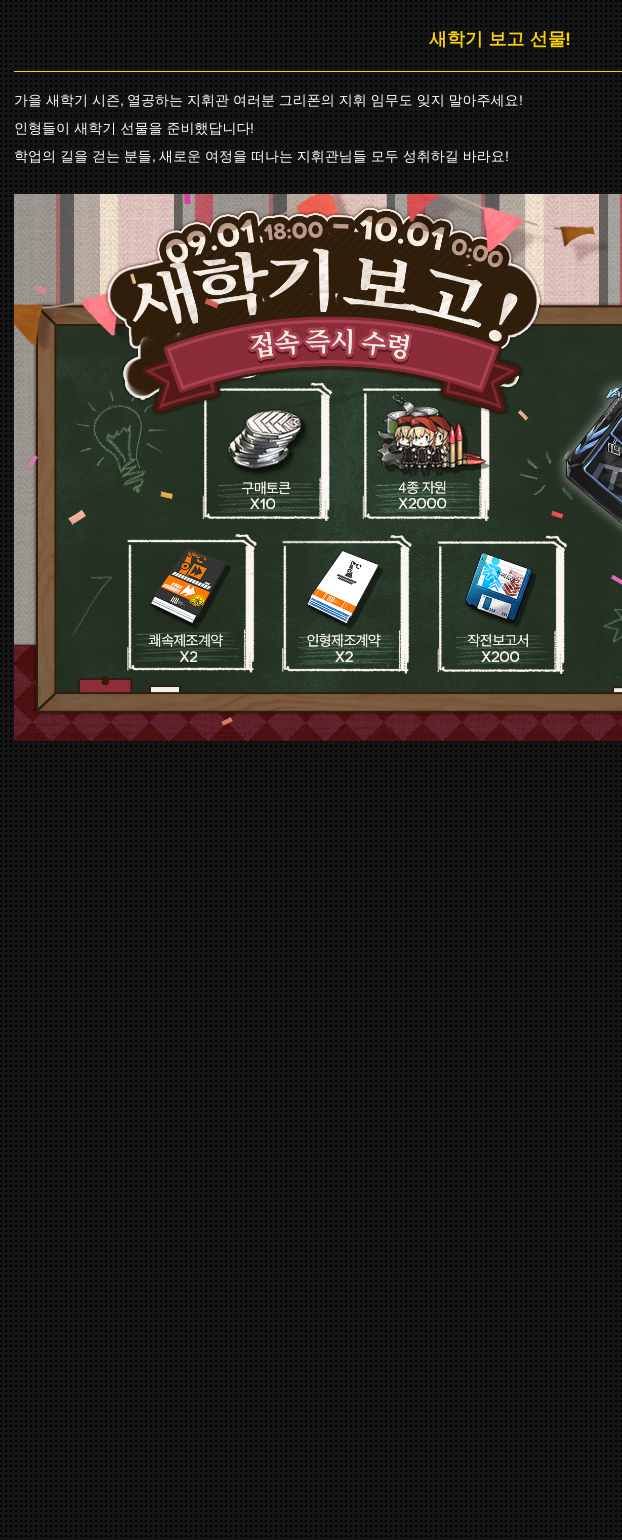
#include <cairo.h>
#include <math.h>
#include <stddef.h>

static cairo_t *ctx;

static void use_color(int r, int g, int b) {
    cairo_set_source_rgb(ctx, r / 255.0, g / 255.0, b / 255.0);
}

static void spaced_text(double x, double y, const char *s, double letter, double word) {
    cairo_move_to(ctx, x, y);
    while (*s) {
        char ch[5] = {0};
        int n = 0;
        do ch[n++] = *s++; while ((*s & 0xC0) == 0x80);
        cairo_show_text(ctx, ch);
        cairo_rel_move_to(ctx, letter + word * (*ch == ' '), 0);
    }
}

static void picture(const char *path, double x, double y, double w, double h) {
    cairo_surface_t *image = cairo_image_surface_create_from_png(path);
    cairo_save(ctx);
    cairo_set_source_surface(ctx, image, x, y);
    cairo_rectangle(ctx, x, y, w, h);
    cairo_fill(ctx);
    cairo_restore(ctx);
    cairo_surface_destroy(image);
}

int main(void) {
    cairo_surface_t *surface = cairo_image_surface_create(CAIRO_FORMAT_RGB24, 622, 1540);
    ctx = cairo_create(surface);
    cairo_font_options_t *options = cairo_font_options_create();
    cairo_font_options_set_hint_metrics(options, CAIRO_HINT_METRICS_OFF);
    cairo_font_options_set_hint_style(options, CAIRO_HINT_STYLE_NONE);
    cairo_set_font_options(ctx, options);
    cairo_set_miter_limit(ctx, 4);
    use_color(21, 21, 21);
    cairo_paint(ctx);
    picture("img1.png", 0, 0, 622, 1537);
    use_color(255, 210, 0);
    cairo_rectangle(ctx, 14, 71, 608, 1);
    cairo_fill(ctx);
    cairo_select_font_face(ctx, "WenQuanYi Zen Hei", CAIRO_FONT_SLANT_NORMAL, CAIRO_FONT_WEIGHT_BOLD);
    cairo_set_font_size(ctx, 18);
    cairo_move_to(ctx, 429, 45);
    cairo_show_text(ctx, "새학기 보고 선물");
    cairo_select_font_face(ctx, "Liberation Sans", CAIRO_FONT_SLANT_NORMAL, CAIRO_FONT_WEIGHT_BOLD);
    cairo_move_to(ctx, 565, 45);
    cairo_show_text(ctx, "!");
    cairo_select_font_face(ctx, "WenQuanYi Zen Hei Medium", CAIRO_FONT_SLANT_NORMAL, CAIRO_FONT_WEIGHT_NORMAL);
    cairo_set_font_size(ctx, 14);
    use_color(255, 255, 255);
    spaced_text(14, 105, "가을 새학기 시즌", 0, -0.25);
    cairo_select_font_face(ctx, "Liberation Sans", CAIRO_FONT_SLANT_NORMAL, CAIRO_FONT_WEIGHT_NORMAL);
    cairo_move_to(ctx, 120, 105);
    cairo_show_text(ctx, ",");
    cairo_select_font_face(ctx, "WenQuanYi Zen Hei Medium", CAIRO_FONT_SLANT_NORMAL, CAIRO_FONT_WEIGHT_NORMAL);
    spaced_text(127, 105, "열공하는 지휘관 여러분 그리폰의 지휘 임무도 잊지 말아주세요", 0, -0.25);
    cairo_select_font_face(ctx, "Liberation Sans", CAIRO_FONT_SLANT_NORMAL, CAIRO_FONT_WEIGHT_NORMAL);
    cairo_move_to(ctx, 519, 105);
    cairo_show_text(ctx, "!");
    cairo_select_font_face(ctx, "WenQuanYi Zen Hei Medium", CAIRO_FONT_SLANT_NORMAL, CAIRO_FONT_WEIGHT_NORMAL);
    cairo_move_to(ctx, 14, 133);
    cairo_show_text(ctx, "인형들이 새학기 선물을 준비했답니다");
    cairo_select_font_face(ctx, "Liberation Sans", CAIRO_FONT_SLANT_NORMAL, CAIRO_FONT_WEIGHT_NORMAL);
    cairo_move_to(ctx, 250, 133);
    cairo_show_text(ctx, "!");
    cairo_select_font_face(ctx, "WenQuanYi Zen Hei Medium", CAIRO_FONT_SLANT_NORMAL, CAIRO_FONT_WEIGHT_NORMAL);
    spaced_text(14, 161, "학업의 길을 걷는 분들", 0, -0.25);
    cairo_select_font_face(ctx, "Liberation Sans", CAIRO_FONT_SLANT_NORMAL, CAIRO_FONT_WEIGHT_NORMAL);
    cairo_move_to(ctx, 152, 161);
    cairo_show_text(ctx, ",");
    cairo_select_font_face(ctx, "WenQuanYi Zen Hei Medium", CAIRO_FONT_SLANT_NORMAL, CAIRO_FONT_WEIGHT_NORMAL);
    spaced_text(159, 161, "새로운 여정을 떠나는 지휘관님들 모두 성취하길 바라요", 0, -0.25);
    cairo_select_font_face(ctx, "Liberation Sans", CAIRO_FONT_SLANT_NORMAL, CAIRO_FONT_WEIGHT_NORMAL);
    cairo_move_to(ctx, 505, 161);
    cairo_show_text(ctx, "!");
    picture("img2.png", 14, 194, 608, 547);
    cairo_surface_write_to_png(surface, "result.png");
    cairo_font_options_destroy(options);
    cairo_destroy(ctx);
    cairo_surface_destroy(surface);
    return 0;
}
